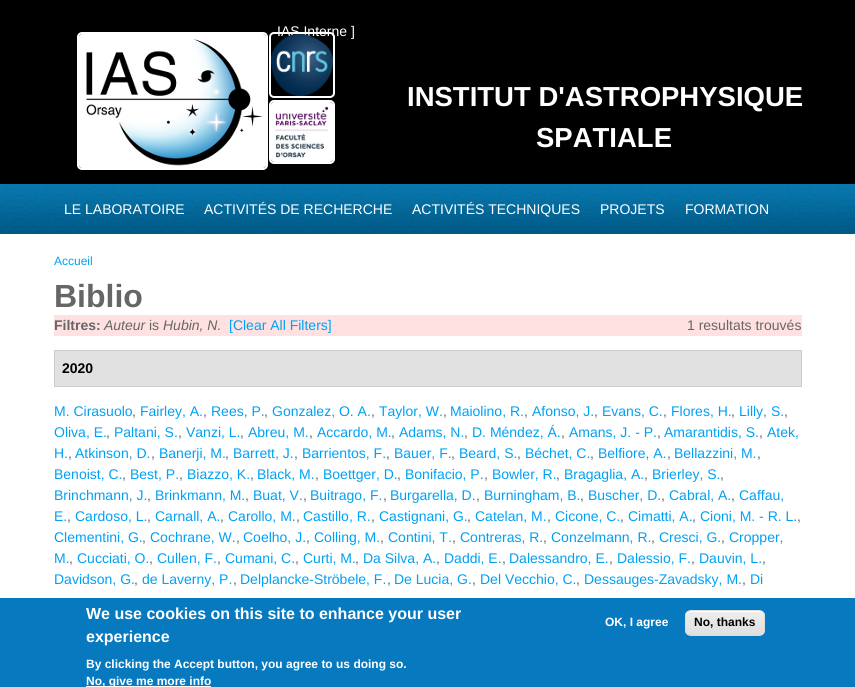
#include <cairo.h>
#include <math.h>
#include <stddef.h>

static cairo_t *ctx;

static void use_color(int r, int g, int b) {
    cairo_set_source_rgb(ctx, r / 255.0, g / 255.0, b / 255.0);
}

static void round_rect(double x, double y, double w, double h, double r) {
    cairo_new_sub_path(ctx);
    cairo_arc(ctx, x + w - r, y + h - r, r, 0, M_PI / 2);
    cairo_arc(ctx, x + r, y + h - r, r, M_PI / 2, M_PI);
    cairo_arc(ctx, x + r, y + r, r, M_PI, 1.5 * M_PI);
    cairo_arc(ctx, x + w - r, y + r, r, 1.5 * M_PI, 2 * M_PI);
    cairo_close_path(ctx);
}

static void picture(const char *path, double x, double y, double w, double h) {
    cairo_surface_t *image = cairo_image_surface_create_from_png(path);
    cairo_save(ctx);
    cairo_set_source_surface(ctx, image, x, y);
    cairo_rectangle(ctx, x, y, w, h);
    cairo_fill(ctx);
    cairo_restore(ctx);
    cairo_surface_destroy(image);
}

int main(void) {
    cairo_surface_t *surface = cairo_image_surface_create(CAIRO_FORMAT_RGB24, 855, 687);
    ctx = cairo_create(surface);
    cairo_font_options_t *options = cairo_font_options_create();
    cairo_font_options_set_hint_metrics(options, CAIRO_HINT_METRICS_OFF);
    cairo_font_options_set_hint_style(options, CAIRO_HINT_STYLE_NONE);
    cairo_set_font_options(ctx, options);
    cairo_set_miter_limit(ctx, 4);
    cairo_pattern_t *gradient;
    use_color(255, 255, 255);
    cairo_paint(ctx);
    use_color(0, 0, 0);
    cairo_rectangle(ctx, 0, 0, 855, 184);
    cairo_fill(ctx);
    cairo_select_font_face(ctx, "Liberation Sans", CAIRO_FONT_SLANT_NORMAL, CAIRO_FONT_WEIGHT_NORMAL);
    cairo_set_font_size(ctx, 14);
    use_color(255, 255, 255);
    cairo_move_to(ctx, 277, 36);
    cairo_show_text(ctx, "IAS Interne ]");
    round_rect(78, 33, 189, 136, 4);
    cairo_stroke(ctx);
    picture("img1.png", 79, 34, 187, 134);
    round_rect(270, 33, 64, 64, 4);
    cairo_stroke(ctx);
    picture("img2.png", 271, 34, 62, 62);
    round_rect(270, 101, 64, 62, 4);
    cairo_stroke(ctx);
    picture("img3.png", 271, 102, 62, 60);
    cairo_select_font_face(ctx, "Liberation Sans", CAIRO_FONT_SLANT_NORMAL, CAIRO_FONT_WEIGHT_BOLD);
    cairo_set_font_size(ctx, 27.5);
    cairo_move_to(ctx, 407, 106);
    cairo_show_text(ctx, "INSTITUT D'ASTROPHYSIQUE");
    cairo_move_to(ctx, 536, 147);
    cairo_show_text(ctx, "SPATIALE");
    picture("img4.png", 0, 184, 855, 50);
    cairo_select_font_face(ctx, "Liberation Sans", CAIRO_FONT_SLANT_NORMAL, CAIRO_FONT_WEIGHT_NORMAL);
    cairo_set_font_size(ctx, 14);
    cairo_move_to(ctx, 64, 214);
    cairo_show_text(ctx, "LE LABORATOIRE");
    cairo_move_to(ctx, 204, 214);
    cairo_show_text(ctx, "ACTIVITÉS DE RECHERCHE");
    cairo_move_to(ctx, 412, 214);
    cairo_show_text(ctx, "ACTIVITÉS TECHNIQUES");
    cairo_move_to(ctx, 600, 214);
    cairo_show_text(ctx, "PROJETS");
    cairo_move_to(ctx, 685, 214);
    cairo_show_text(ctx, "FORMATION");
    cairo_set_font_size(ctx, 12);
    use_color(0, 161, 244);
    cairo_move_to(ctx, 54, 265);
    cairo_show_text(ctx, "Accueil");
    cairo_select_font_face(ctx, "Liberation Sans", CAIRO_FONT_SLANT_NORMAL, CAIRO_FONT_WEIGHT_BOLD);
    cairo_set_font_size(ctx, 32);
    use_color(102, 102, 102);
    cairo_move_to(ctx, 54, 307);
    cairo_show_text(ctx, "Biblio");
    use_color(255, 225, 225);
    cairo_rectangle(ctx, 54, 315, 748, 21);
    cairo_fill(ctx);
    cairo_set_font_size(ctx, 14);
    use_color(102, 102, 102);
    cairo_move_to(ctx, 54, 330);
    cairo_show_text(ctx, "Filtres:");
    cairo_select_font_face(ctx, "Liberation Sans", CAIRO_FONT_SLANT_ITALIC, CAIRO_FONT_WEIGHT_NORMAL);
    cairo_move_to(ctx, 104, 330);
    cairo_show_text(ctx, "Auteur");
    cairo_select_font_face(ctx, "Liberation Sans", CAIRO_FONT_SLANT_NORMAL, CAIRO_FONT_WEIGHT_NORMAL);
    cairo_move_to(ctx, 149, 330);
    cairo_show_text(ctx, "is");
    cairo_select_font_face(ctx, "Liberation Sans", CAIRO_FONT_SLANT_ITALIC, CAIRO_FONT_WEIGHT_NORMAL);
    cairo_move_to(ctx, 163, 330);
    cairo_show_text(ctx, "Hubin, N.");
    cairo_select_font_face(ctx, "Liberation Sans", CAIRO_FONT_SLANT_NORMAL, CAIRO_FONT_WEIGHT_NORMAL);
    use_color(0, 161, 244);
    cairo_move_to(ctx, 229, 330);
    cairo_show_text(ctx, "[Clear All Filters]");
    use_color(102, 102, 102);
    cairo_move_to(ctx, 687, 330);
    cairo_show_text(ctx, "1 resultats trouvés");
    use_color(225, 225, 225);
    cairo_rectangle(ctx, 54.5, 350.5, 747, 36);
    cairo_fill_preserve(ctx);
    use_color(204, 204, 204);
    cairo_set_line_width(ctx, 1);
    cairo_stroke(ctx);
    cairo_select_font_face(ctx, "Liberation Sans", CAIRO_FONT_SLANT_NORMAL, CAIRO_FONT_WEIGHT_BOLD);
    use_color(0, 0, 0);
    cairo_move_to(ctx, 62, 373);
    cairo_show_text(ctx, "2020");
    cairo_select_font_face(ctx, "Liberation Sans", CAIRO_FONT_SLANT_NORMAL, CAIRO_FONT_WEIGHT_NORMAL);
    use_color(0, 161, 244);
    cairo_move_to(ctx, 54, 416);
    cairo_show_text(ctx, "M. Cirasuolo");
    use_color(102, 102, 102);
    cairo_move_to(ctx, 132, 416);
    cairo_show_text(ctx, ",");
    use_color(0, 161, 244);
    cairo_move_to(ctx, 140, 416);
    cairo_show_text(ctx, "Fairley, A.");
    use_color(102, 102, 102);
    cairo_move_to(ctx, 203, 416);
    cairo_show_text(ctx, ",");
    use_color(0, 161, 244);
    cairo_move_to(ctx, 211, 416);
    cairo_show_text(ctx, "Rees, P.");
    use_color(102, 102, 102);
    cairo_move_to(ctx, 264, 416);
    cairo_show_text(ctx, ",");
    use_color(0, 161, 244);
    cairo_move_to(ctx, 272, 416);
    cairo_show_text(ctx, "Gonzalez, O. A.");
    use_color(102, 102, 102);
    cairo_move_to(ctx, 371, 416);
    cairo_show_text(ctx, ",");
    use_color(0, 161, 244);
    cairo_move_to(ctx, 379, 416);
    cairo_show_text(ctx, "Taylor, W.");
    use_color(102, 102, 102);
    cairo_move_to(ctx, 443, 416);
    cairo_show_text(ctx, ",");
    use_color(0, 161, 244);
    cairo_move_to(ctx, 450, 416);
    cairo_show_text(ctx, "Maiolino, R.");
    use_color(102, 102, 102);
    cairo_move_to(ctx, 524, 416);
    cairo_show_text(ctx, ",");
    use_color(0, 161, 244);
    cairo_move_to(ctx, 532, 416);
    cairo_show_text(ctx, "Afonso, J.");
    use_color(102, 102, 102);
    cairo_move_to(ctx, 594, 416);
    cairo_show_text(ctx, ",");
    use_color(0, 161, 244);
    cairo_move_to(ctx, 602, 416);
    cairo_show_text(ctx, "Evans, C.");
    use_color(102, 102, 102);
    cairo_move_to(ctx, 663, 416);
    cairo_show_text(ctx, ",");
    use_color(0, 161, 244);
    cairo_move_to(ctx, 671, 416);
    cairo_show_text(ctx, "Flores, H.");
    use_color(102, 102, 102);
    cairo_move_to(ctx, 731, 416);
    cairo_show_text(ctx, ",");
    use_color(0, 161, 244);
    cairo_move_to(ctx, 739, 416);
    cairo_show_text(ctx, "Lilly, S.");
    use_color(102, 102, 102);
    cairo_move_to(ctx, 784, 416);
    cairo_show_text(ctx, ",");
    use_color(0, 161, 244);
    cairo_move_to(ctx, 54, 437);
    cairo_show_text(ctx, "Oliva, E.");
    use_color(102, 102, 102);
    cairo_move_to(ctx, 106, 437);
    cairo_show_text(ctx, ",");
    use_color(0, 161, 244);
    cairo_move_to(ctx, 114, 437);
    cairo_show_text(ctx, "Paltani, S.");
    use_color(102, 102, 102);
    cairo_move_to(ctx, 178, 437);
    cairo_show_text(ctx, ",");
    use_color(0, 161, 244);
    cairo_move_to(ctx, 186, 437);
    cairo_show_text(ctx, "Vanzi, L.");
    use_color(102, 102, 102);
    cairo_move_to(ctx, 240, 437);
    cairo_show_text(ctx, ",");
    use_color(0, 161, 244);
    cairo_move_to(ctx, 248, 437);
    cairo_show_text(ctx, "Abreu, M.");
    use_color(102, 102, 102);
    cairo_move_to(ctx, 309, 437);
    cairo_show_text(ctx, ",");
    use_color(0, 161, 244);
    cairo_move_to(ctx, 317, 437);
    cairo_show_text(ctx, "Accardo, M.");
    use_color(102, 102, 102);
    cairo_move_to(ctx, 391, 437);
    cairo_show_text(ctx, ",");
    use_color(0, 161, 244);
    cairo_move_to(ctx, 399, 437);
    cairo_show_text(ctx, "Adams, N.");
    use_color(102, 102, 102);
    cairo_move_to(ctx, 464, 437);
    cairo_show_text(ctx, ",");
    use_color(0, 161, 244);
    cairo_move_to(ctx, 472, 437);
    cairo_show_text(ctx, "D. Méndez, Á.");
    use_color(102, 102, 102);
    cairo_move_to(ctx, 561, 437);
    cairo_show_text(ctx, ",");
    use_color(0, 161, 244);
    cairo_move_to(ctx, 569, 437);
    cairo_show_text(ctx, "Amans, J. - P.");
    use_color(102, 102, 102);
    cairo_move_to(ctx, 657, 437);
    cairo_show_text(ctx, ",");
    use_color(0, 161, 244);
    cairo_move_to(ctx, 664, 437);
    cairo_show_text(ctx, "Amarantidis, S.");
    use_color(102, 102, 102);
    cairo_move_to(ctx, 759, 437);
    cairo_show_text(ctx, ",");
    use_color(0, 161, 244);
    cairo_move_to(ctx, 767, 437);
    cairo_show_text(ctx, "Atek,");
    cairo_move_to(ctx, 54, 458);
    cairo_show_text(ctx, "H.");
    use_color(102, 102, 102);
    cairo_move_to(ctx, 68, 458);
    cairo_show_text(ctx, ",");
    use_color(0, 161, 244);
    cairo_move_to(ctx, 75, 458);
    cairo_show_text(ctx, "Atkinson, D.");
    use_color(102, 102, 102);
    cairo_move_to(ctx, 151, 458);
    cairo_show_text(ctx, ",");
    use_color(0, 161, 244);
    cairo_move_to(ctx, 159, 458);
    cairo_show_text(ctx, "Banerji, M.");
    use_color(102, 102, 102);
    cairo_move_to(ctx, 225, 458);
    cairo_show_text(ctx, ",");
    use_color(0, 161, 244);
    cairo_move_to(ctx, 233, 458);
    cairo_show_text(ctx, "Barrett, J.");
    use_color(102, 102, 102);
    cairo_move_to(ctx, 294, 458);
    cairo_show_text(ctx, ",");
    use_color(0, 161, 244);
    cairo_move_to(ctx, 302, 458);
    cairo_show_text(ctx, "Barrientos, F.");
    use_color(102, 102, 102);
    cairo_move_to(ctx, 386, 458);
    cairo_show_text(ctx, ",");
    use_color(0, 161, 244);
    cairo_move_to(ctx, 394, 458);
    cairo_show_text(ctx, "Bauer, F.");
    use_color(102, 102, 102);
    cairo_move_to(ctx, 451, 458);
    cairo_show_text(ctx, ",");
    use_color(0, 161, 244);
    cairo_move_to(ctx, 459, 458);
    cairo_show_text(ctx, "Beard, S.");
    use_color(102, 102, 102);
    cairo_move_to(ctx, 517, 458);
    cairo_show_text(ctx, ",");
    use_color(0, 161, 244);
    cairo_move_to(ctx, 525, 458);
    cairo_show_text(ctx, "Béchet, C.");
    use_color(102, 102, 102);
    cairo_move_to(ctx, 590, 458);
    cairo_show_text(ctx, ",");
    use_color(0, 161, 244);
    cairo_move_to(ctx, 598, 458);
    cairo_show_text(ctx, "Belfiore, A.");
    use_color(102, 102, 102);
    cairo_move_to(ctx, 667, 458);
    cairo_show_text(ctx, ",");
    use_color(0, 161, 244);
    cairo_move_to(ctx, 674, 458);
    cairo_show_text(ctx, "Bellazzini, M.");
    use_color(102, 102, 102);
    cairo_move_to(ctx, 757, 458);
    cairo_show_text(ctx, ",");
    use_color(0, 161, 244);
    cairo_move_to(ctx, 54, 479);
    cairo_show_text(ctx, "Benoist, C.");
    use_color(102, 102, 102);
    cairo_move_to(ctx, 122, 479);
    cairo_show_text(ctx, ",");
    use_color(0, 161, 244);
    cairo_move_to(ctx, 130, 479);
    cairo_show_text(ctx, "Best, P.");
    use_color(102, 102, 102);
    cairo_move_to(ctx, 179, 479);
    cairo_show_text(ctx, ",");
    use_color(0, 161, 244);
    cairo_move_to(ctx, 187, 479);
    cairo_show_text(ctx, "Biazzo, K.");
    use_color(102, 102, 102);
    cairo_move_to(ctx, 250, 479);
    cairo_show_text(ctx, ",");
    use_color(0, 161, 244);
    cairo_move_to(ctx, 257, 479);
    cairo_show_text(ctx, "Black, M.");
    use_color(102, 102, 102);
    cairo_move_to(ctx, 315, 479);
    cairo_show_text(ctx, ",");
    use_color(0, 161, 244);
    cairo_move_to(ctx, 323, 479);
    cairo_show_text(ctx, "Boettger, D.");
    use_color(102, 102, 102);
    cairo_move_to(ctx, 397, 479);
    cairo_show_text(ctx, ",");
    use_color(0, 161, 244);
    cairo_move_to(ctx, 405, 479);
    cairo_show_text(ctx, "Bonifacio, P.");
    use_color(102, 102, 102);
    cairo_move_to(ctx, 484, 479);
    cairo_show_text(ctx, ",");
    use_color(0, 161, 244);
    cairo_move_to(ctx, 492, 479);
    cairo_show_text(ctx, "Bowler, R.");
    use_color(102, 102, 102);
    cairo_move_to(ctx, 556, 479);
    cairo_show_text(ctx, ",");
    use_color(0, 161, 244);
    cairo_move_to(ctx, 564, 479);
    cairo_show_text(ctx, "Bragaglia, A.");
    use_color(102, 102, 102);
    cairo_move_to(ctx, 644, 479);
    cairo_show_text(ctx, ",");
    use_color(0, 161, 244);
    cairo_move_to(ctx, 652, 479);
    cairo_show_text(ctx, "Brierley, S.");
    use_color(102, 102, 102);
    cairo_move_to(ctx, 720, 479);
    cairo_show_text(ctx, ",");
    use_color(0, 161, 244);
    cairo_move_to(ctx, 54, 500);
    cairo_show_text(ctx, "Brinchmann, J.");
    use_color(102, 102, 102);
    cairo_move_to(ctx, 147, 500);
    cairo_show_text(ctx, ",");
    use_color(0, 161, 244);
    cairo_move_to(ctx, 155, 500);
    cairo_show_text(ctx, "Brinkmann, M.");
    use_color(102, 102, 102);
    cairo_move_to(ctx, 245, 500);
    cairo_show_text(ctx, ",");
    use_color(0, 161, 244);
    cairo_move_to(ctx, 253, 500);
    cairo_show_text(ctx, "Buat, V.");
    use_color(102, 102, 102);
    cairo_move_to(ctx, 303, 500);
    cairo_show_text(ctx, ",");
    use_color(0, 161, 244);
    cairo_move_to(ctx, 310, 500);
    cairo_show_text(ctx, "Buitrago, F.");
    use_color(102, 102, 102);
    cairo_move_to(ctx, 383, 500);
    cairo_show_text(ctx, ",");
    use_color(0, 161, 244);
    cairo_move_to(ctx, 390, 500);
    cairo_show_text(ctx, "Burgarella, D.");
    use_color(102, 102, 102);
    cairo_move_to(ctx, 476, 500);
    cairo_show_text(ctx, ",");
    use_color(0, 161, 244);
    cairo_move_to(ctx, 484, 500);
    cairo_show_text(ctx, "Burningham, B.");
    use_color(102, 102, 102);
    cairo_move_to(ctx, 580, 500);
    cairo_show_text(ctx, ",");
    use_color(0, 161, 244);
    cairo_move_to(ctx, 588, 500);
    cairo_show_text(ctx, "Buscher, D.");
    use_color(102, 102, 102);
    cairo_move_to(ctx, 661, 500);
    cairo_show_text(ctx, ",");
    use_color(0, 161, 244);
    cairo_move_to(ctx, 669, 500);
    cairo_show_text(ctx, "Cabral, A.");
    use_color(102, 102, 102);
    cairo_move_to(ctx, 731, 500);
    cairo_show_text(ctx, ",");
    use_color(0, 161, 244);
    cairo_move_to(ctx, 739, 500);
    cairo_show_text(ctx, "Caffau,");
    cairo_move_to(ctx, 54, 521);
    cairo_show_text(ctx, "E.");
    use_color(102, 102, 102);
    cairo_move_to(ctx, 67, 521);
    cairo_show_text(ctx, ",");
    use_color(0, 161, 244);
    cairo_move_to(ctx, 75, 521);
    cairo_show_text(ctx, "Cardoso, L.");
    use_color(102, 102, 102);
    cairo_move_to(ctx, 147, 521);
    cairo_show_text(ctx, ",");
    use_color(0, 161, 244);
    cairo_move_to(ctx, 155, 521);
    cairo_show_text(ctx, "Carnall, A.");
    use_color(102, 102, 102);
    cairo_move_to(ctx, 220, 521);
    cairo_show_text(ctx, ",");
    use_color(0, 161, 244);
    cairo_move_to(ctx, 228, 521);
    cairo_show_text(ctx, "Carollo, M.");
    use_color(102, 102, 102);
    cairo_move_to(ctx, 296, 521);
    cairo_show_text(ctx, ",");
    use_color(0, 161, 244);
    cairo_move_to(ctx, 303, 521);
    cairo_show_text(ctx, "Castillo, R.");
    use_color(102, 102, 102);
    cairo_move_to(ctx, 371, 521);
    cairo_show_text(ctx, ",");
    use_color(0, 161, 244);
    cairo_move_to(ctx, 379, 521);
    cairo_show_text(ctx, "Castignani, G.");
    use_color(102, 102, 102);
    cairo_move_to(ctx, 467, 521);
    cairo_show_text(ctx, ",");
    use_color(0, 161, 244);
    cairo_move_to(ctx, 475, 521);
    cairo_show_text(ctx, "Catelan, M.");
    use_color(102, 102, 102);
    cairo_move_to(ctx, 547, 521);
    cairo_show_text(ctx, ",");
    use_color(0, 161, 244);
    cairo_move_to(ctx, 555, 521);
    cairo_show_text(ctx, "Cicone, C.");
    use_color(102, 102, 102);
    cairo_move_to(ctx, 620, 521);
    cairo_show_text(ctx, ",");
    use_color(0, 161, 244);
    cairo_move_to(ctx, 628, 521);
    cairo_show_text(ctx, "Cimatti, A.");
    use_color(102, 102, 102);
    cairo_move_to(ctx, 692, 521);
    cairo_show_text(ctx, ",");
    use_color(0, 161, 244);
    cairo_move_to(ctx, 700, 521);
    cairo_show_text(ctx, "Cioni, M. - R. L.");
    use_color(102, 102, 102);
    cairo_move_to(ctx, 797, 521);
    cairo_show_text(ctx, ",");
    use_color(0, 161, 244);
    cairo_move_to(ctx, 54, 542);
    cairo_show_text(ctx, "Clementini, G.");
    use_color(102, 102, 102);
    cairo_move_to(ctx, 142, 542);
    cairo_show_text(ctx, ",");
    use_color(0, 161, 244);
    cairo_move_to(ctx, 150, 542);
    cairo_show_text(ctx, "Cochrane, W.");
    use_color(102, 102, 102);
    cairo_move_to(ctx, 236, 542);
    cairo_show_text(ctx, ",");
    use_color(0, 161, 244);
    cairo_move_to(ctx, 243, 542);
    cairo_show_text(ctx, "Coelho, J.");
    use_color(102, 102, 102);
    cairo_move_to(ctx, 306, 542);
    cairo_show_text(ctx, ",");
    use_color(0, 161, 244);
    cairo_move_to(ctx, 314, 542);
    cairo_show_text(ctx, "Colling, M.");
    use_color(102, 102, 102);
    cairo_move_to(ctx, 380, 542);
    cairo_show_text(ctx, ",");
    use_color(0, 161, 244);
    cairo_move_to(ctx, 388, 542);
    cairo_show_text(ctx, "Contini, T.");
    use_color(102, 102, 102);
    cairo_move_to(ctx, 452, 542);
    cairo_show_text(ctx, ",");
    use_color(0, 161, 244);
    cairo_move_to(ctx, 460, 542);
    cairo_show_text(ctx, "Contreras, R.");
    use_color(102, 102, 102);
    cairo_move_to(ctx, 543, 542);
    cairo_show_text(ctx, ",");
    use_color(0, 161, 244);
    cairo_move_to(ctx, 551, 542);
    cairo_show_text(ctx, "Conzelmann, R.");
    use_color(102, 102, 102);
    cairo_move_to(ctx, 651, 542);
    cairo_show_text(ctx, ",");
    use_color(0, 161, 244);
    cairo_move_to(ctx, 659, 542);
    cairo_show_text(ctx, "Cresci, G.");
    use_color(102, 102, 102);
    cairo_move_to(ctx, 721, 542);
    cairo_show_text(ctx, ",");
    use_color(0, 161, 244);
    cairo_move_to(ctx, 729, 542);
    cairo_show_text(ctx, "Cropper,");
    cairo_move_to(ctx, 54, 563);
    cairo_show_text(ctx, "M.");
    use_color(102, 102, 102);
    cairo_move_to(ctx, 69, 563);
    cairo_show_text(ctx, ",");
    use_color(0, 161, 244);
    cairo_move_to(ctx, 77, 563);
    cairo_show_text(ctx, "Cucciati, O.");
    use_color(102, 102, 102);
    cairo_move_to(ctx, 149, 563);
    cairo_show_text(ctx, ",");
    use_color(0, 161, 244);
    cairo_move_to(ctx, 157, 563);
    cairo_show_text(ctx, "Cullen, F.");
    use_color(102, 102, 102);
    cairo_move_to(ctx, 217, 563);
    cairo_show_text(ctx, ",");
    use_color(0, 161, 244);
    cairo_move_to(ctx, 225, 563);
    cairo_show_text(ctx, "Cumani, C.");
    use_color(102, 102, 102);
    cairo_move_to(ctx, 295, 563);
    cairo_show_text(ctx, ",");
    use_color(0, 161, 244);
    cairo_move_to(ctx, 303, 563);
    cairo_show_text(ctx, "Curti, M.");
    use_color(102, 102, 102);
    cairo_move_to(ctx, 355, 563);
    cairo_show_text(ctx, ",");
    use_color(0, 161, 244);
    cairo_move_to(ctx, 363, 563);
    cairo_show_text(ctx, "Da Silva, A.");
    use_color(102, 102, 102);
    cairo_move_to(ctx, 436, 563);
    cairo_show_text(ctx, ",");
    use_color(0, 161, 244);
    cairo_move_to(ctx, 444, 563);
    cairo_show_text(ctx, "Daddi, E.");
    use_color(102, 102, 102);
    cairo_move_to(ctx, 502, 563);
    cairo_show_text(ctx, ",");
    use_color(0, 161, 244);
    cairo_move_to(ctx, 509, 563);
    cairo_show_text(ctx, "Dalessandro, E.");
    use_color(102, 102, 102);
    cairo_move_to(ctx, 609, 563);
    cairo_show_text(ctx, ",");
    use_color(0, 161, 244);
    cairo_move_to(ctx, 617, 563);
    cairo_show_text(ctx, "Dalessio, F.");
    use_color(102, 102, 102);
    cairo_move_to(ctx, 691, 563);
    cairo_show_text(ctx, ",");
    use_color(0, 161, 244);
    cairo_move_to(ctx, 699, 563);
    cairo_show_text(ctx, "Dauvin, L.");
    use_color(102, 102, 102);
    cairo_move_to(ctx, 762, 563);
    cairo_show_text(ctx, ",");
    use_color(0, 161, 244);
    cairo_move_to(ctx, 54, 584);
    cairo_show_text(ctx, "Davidson, G.");
    use_color(102, 102, 102);
    cairo_move_to(ctx, 134, 584);
    cairo_show_text(ctx, ",");
    use_color(0, 161, 244);
    cairo_move_to(ctx, 142, 584);
    cairo_show_text(ctx, "de Laverny, P.");
    use_color(102, 102, 102);
    cairo_move_to(ctx, 233, 584);
    cairo_show_text(ctx, ",");
    use_color(0, 161, 244);
    cairo_move_to(ctx, 240, 584);
    cairo_show_text(ctx, "Delplancke-Ströbele, F.");
    use_color(102, 102, 102);
    cairo_move_to(ctx, 387, 584);
    cairo_show_text(ctx, ",");
    use_color(0, 161, 244);
    cairo_move_to(ctx, 394, 584);
    cairo_show_text(ctx, "De Lucia, G.");
    use_color(102, 102, 102);
    cairo_move_to(ctx, 472, 584);
    cairo_show_text(ctx, ",");
    use_color(0, 161, 244);
    cairo_move_to(ctx, 480, 584);
    cairo_show_text(ctx, "Del Vecchio, C.");
    use_color(102, 102, 102);
    cairo_move_to(ctx, 576, 584);
    cairo_show_text(ctx, ",");
    use_color(0, 161, 244);
    cairo_move_to(ctx, 584, 584);
    cairo_show_text(ctx, "Dessauges-Zavadsky, M.");
    use_color(102, 102, 102);
    cairo_move_to(ctx, 742, 584);
    cairo_show_text(ctx, ",");
    use_color(0, 161, 244);
    cairo_move_to(ctx, 750, 584);
    cairo_show_text(ctx, "Di");
    use_color(7, 121, 191);
    cairo_rectangle(ctx, 0, 598, 855, 89);
    cairo_fill(ctx);
    cairo_select_font_face(ctx, "Liberation Sans", CAIRO_FONT_SLANT_NORMAL, CAIRO_FONT_WEIGHT_BOLD);
    cairo_set_font_size(ctx, 16);
    use_color(255, 255, 255);
    cairo_move_to(ctx, 86, 619);
    cairo_show_text(ctx, "We use cookies on this site to enhance your user");
    cairo_move_to(ctx, 86, 642);
    cairo_show_text(ctx, "experience");
    cairo_set_font_size(ctx, 12);
    cairo_move_to(ctx, 86, 668);
    cairo_show_text(ctx, "By clicking the Accept button, you agree to us doing so.");
    cairo_rectangle(ctx, 86, 686, 125, 1);
    cairo_fill(ctx);
    cairo_move_to(ctx, 86, 685);
    cairo_show_text(ctx, "No, give me more info");
    cairo_move_to(ctx, 605, 626);
    cairo_show_text(ctx, "OK, I agree");
    cairo_save(ctx);
    round_rect(685, 610, 80, 26, 6);
    cairo_clip(ctx);
    gradient = cairo_pattern_create_linear(725, 611, 725, 635);
    cairo_pattern_add_color_stop_rgba(gradient, 0.05, 0.929, 0.929, 0.929, 1);
    cairo_pattern_add_color_stop_rgba(gradient, 1, 0.875, 0.875, 0.875, 1);
    cairo_set_source(ctx, gradient);
    cairo_pattern_destroy(gradient);
    cairo_rectangle(ctx, 685, 611, 80, 24);
    cairo_fill(ctx);
    cairo_restore(ctx);
    cairo_new_path(ctx);
    cairo_move_to(ctx, 691, 612);
    cairo_line_to(ctx, 759, 612);
    cairo_curve_to(ctx, 762, 612, 764, 614, 764, 617);
    cairo_curve_to(ctx, 764, 608, 753, 611, 748, 611);
    cairo_line_to(ctx, 702, 611);
    cairo_curve_to(ctx, 697, 611, 686, 608, 686, 617);
    cairo_curve_to(ctx, 686, 614, 688, 612, 691, 612);
    cairo_close_path(ctx);
    cairo_fill(ctx);
    round_rect(685.5, 610.5, 79, 25, 5.5);
    use_color(220, 220, 220);
    cairo_stroke(ctx);
    use_color(0, 0, 0);
    cairo_move_to(ctx, 694, 626);
    cairo_show_text(ctx, "No, thanks");
    cairo_surface_write_to_png(surface, "result.png");
    cairo_font_options_destroy(options);
    cairo_destroy(ctx);
    cairo_surface_destroy(surface);
    return 0;
}
